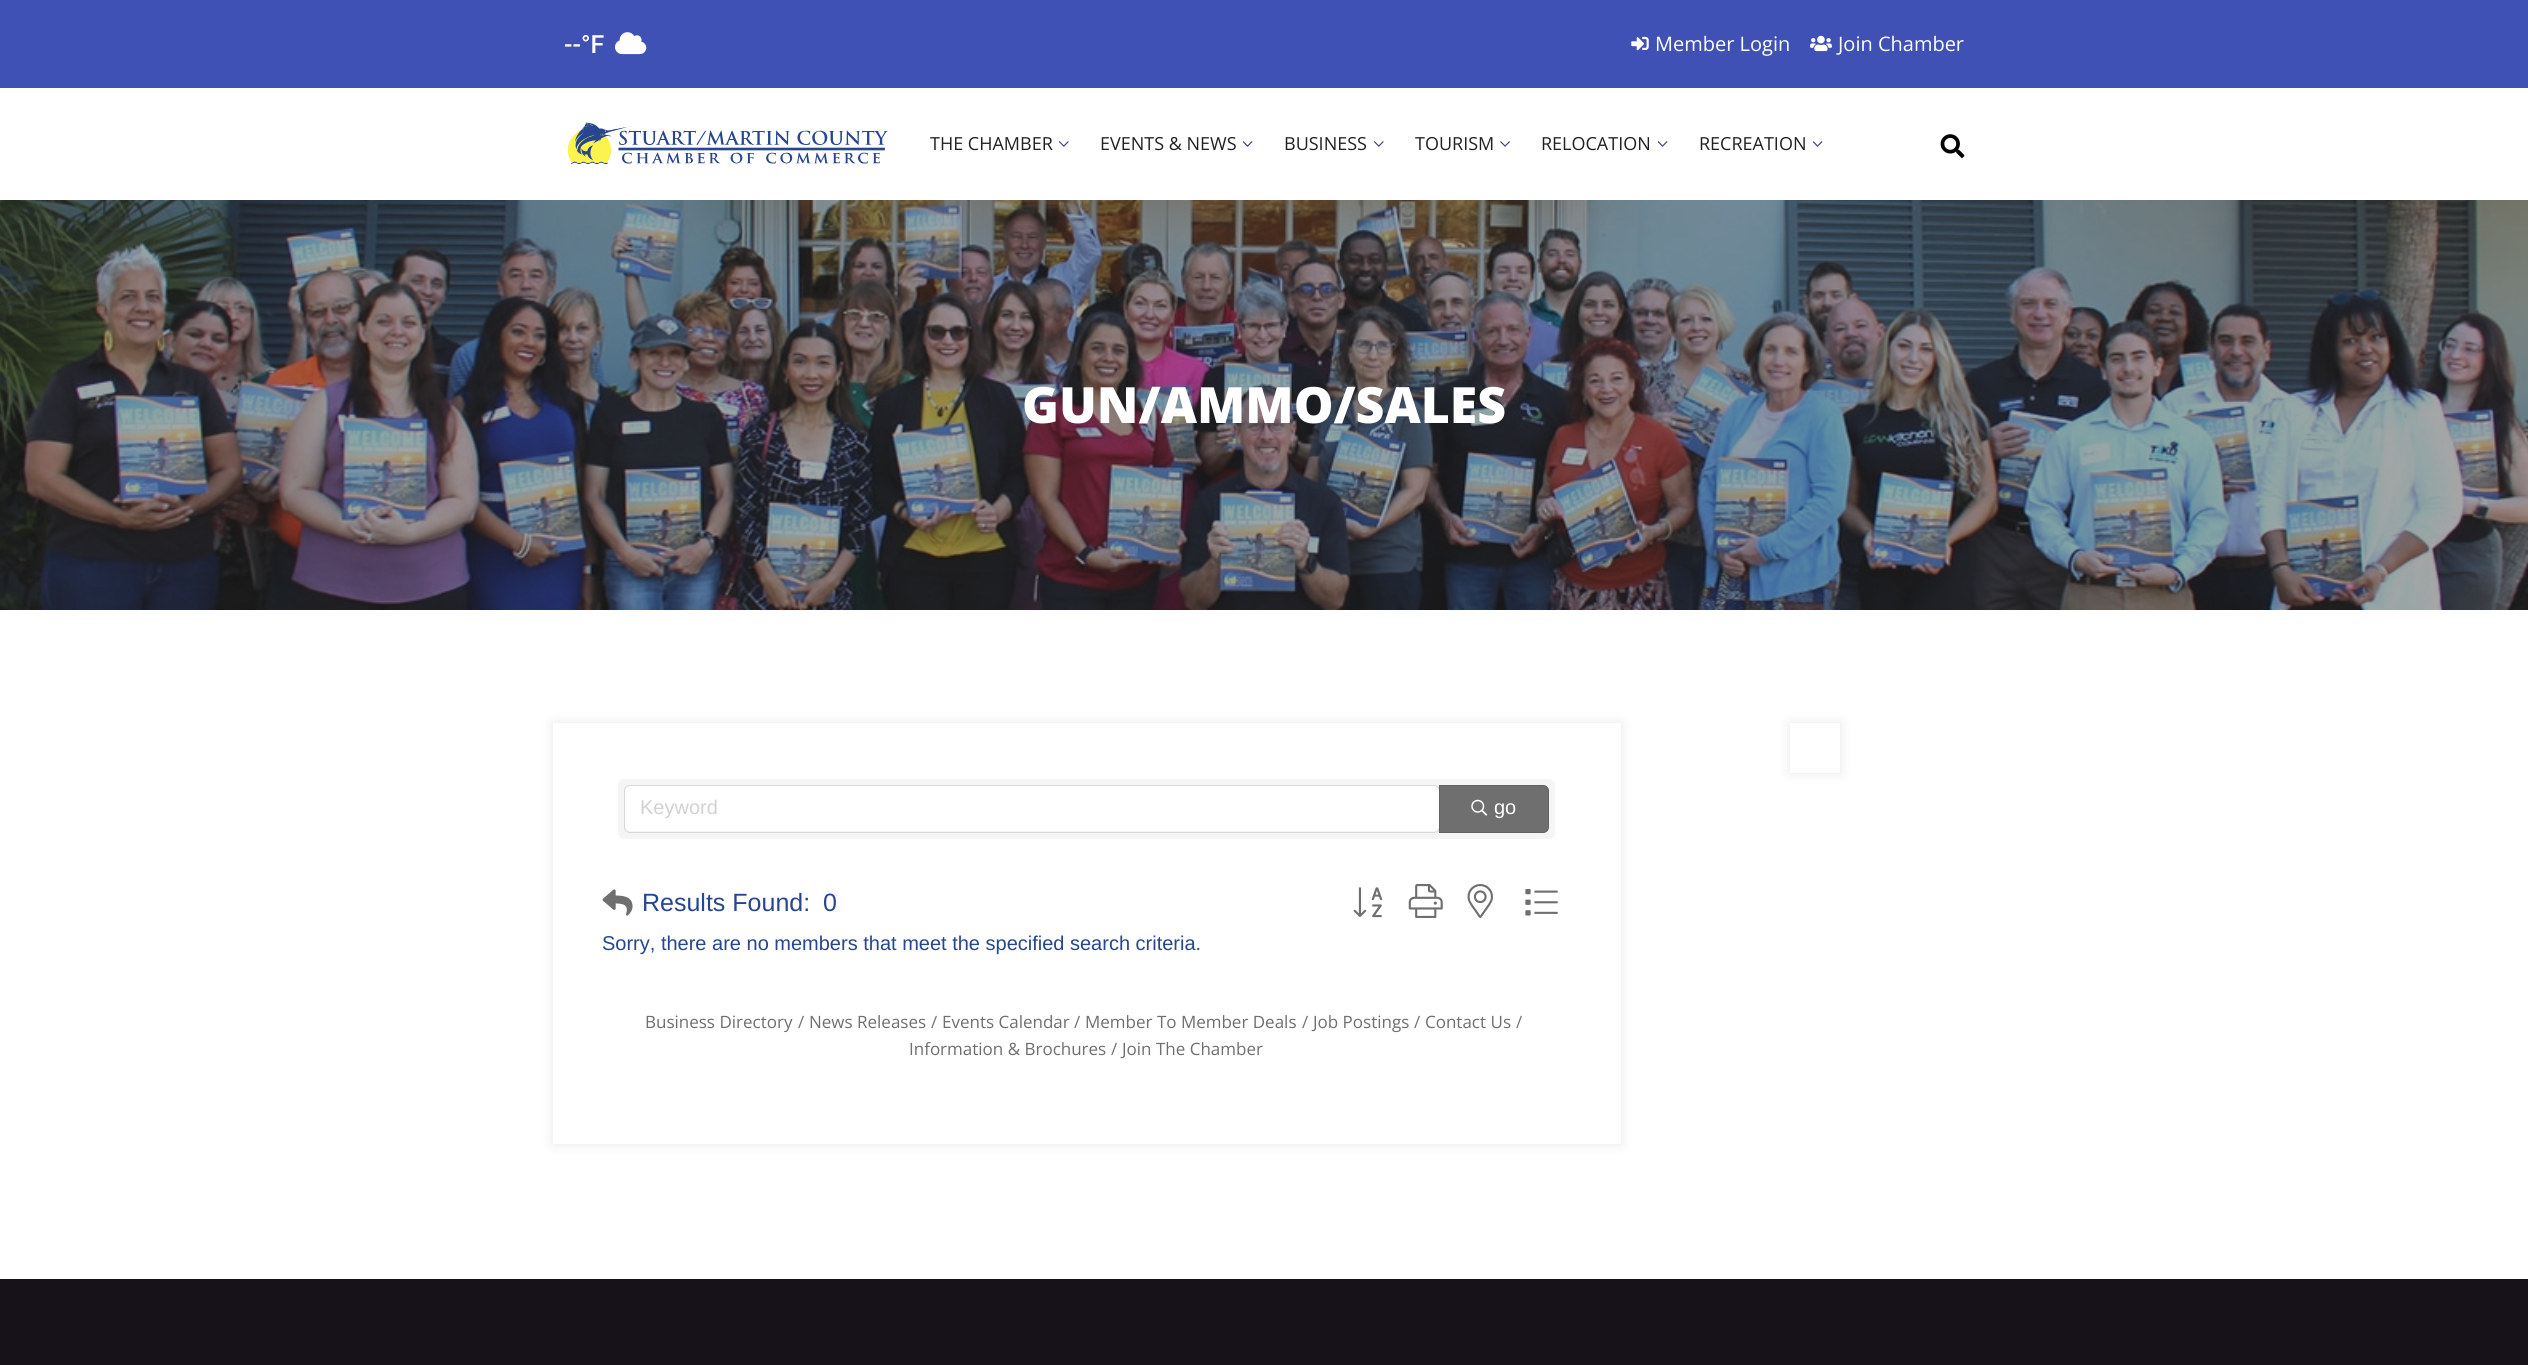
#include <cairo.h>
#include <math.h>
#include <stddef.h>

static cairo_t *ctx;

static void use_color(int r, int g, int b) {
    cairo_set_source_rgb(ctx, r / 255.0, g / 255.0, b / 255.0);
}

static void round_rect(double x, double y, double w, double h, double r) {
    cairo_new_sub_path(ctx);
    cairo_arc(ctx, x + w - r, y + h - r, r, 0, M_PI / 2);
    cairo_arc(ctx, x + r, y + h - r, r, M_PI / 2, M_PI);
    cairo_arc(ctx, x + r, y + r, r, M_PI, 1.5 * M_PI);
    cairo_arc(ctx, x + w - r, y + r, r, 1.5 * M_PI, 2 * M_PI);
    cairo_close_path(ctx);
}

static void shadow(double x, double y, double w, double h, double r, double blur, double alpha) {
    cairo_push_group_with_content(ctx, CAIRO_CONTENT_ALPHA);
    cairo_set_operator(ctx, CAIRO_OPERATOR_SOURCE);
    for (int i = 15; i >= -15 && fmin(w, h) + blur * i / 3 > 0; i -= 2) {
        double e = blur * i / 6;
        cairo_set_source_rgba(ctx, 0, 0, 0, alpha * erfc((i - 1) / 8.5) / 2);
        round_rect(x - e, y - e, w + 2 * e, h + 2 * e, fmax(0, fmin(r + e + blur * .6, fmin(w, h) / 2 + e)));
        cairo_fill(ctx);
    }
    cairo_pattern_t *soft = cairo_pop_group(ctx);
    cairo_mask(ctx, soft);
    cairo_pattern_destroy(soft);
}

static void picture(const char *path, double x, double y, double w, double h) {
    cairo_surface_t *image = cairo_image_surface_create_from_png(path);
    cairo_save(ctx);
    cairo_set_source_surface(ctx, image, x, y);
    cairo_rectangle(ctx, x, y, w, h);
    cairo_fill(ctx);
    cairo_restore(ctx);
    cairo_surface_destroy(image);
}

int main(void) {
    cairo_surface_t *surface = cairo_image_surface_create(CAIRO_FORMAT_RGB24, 2528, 1365);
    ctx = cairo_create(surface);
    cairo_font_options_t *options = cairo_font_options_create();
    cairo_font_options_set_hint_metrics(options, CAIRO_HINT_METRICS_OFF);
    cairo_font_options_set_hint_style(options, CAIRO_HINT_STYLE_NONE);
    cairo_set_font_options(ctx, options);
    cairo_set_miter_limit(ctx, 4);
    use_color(255, 255, 255);
    cairo_paint(ctx);
    use_color(63, 81, 181);
    cairo_rectangle(ctx, 0, 0, 2528, 88);
    cairo_fill(ctx);
    cairo_select_font_face(ctx, "Roboto Medium", CAIRO_FONT_SLANT_NORMAL, CAIRO_FONT_WEIGHT_NORMAL);
    cairo_set_font_size(ctx, 25);
    use_color(255, 255, 255);
    cairo_move_to(ctx, 564, 53);
    cairo_show_text(ctx, "--°F");
    picture("img1.png", 615, 32, 32, 23);
    picture("img2.png", 1631, 36, 18, 15);
    cairo_select_font_face(ctx, "Open Sans", CAIRO_FONT_SLANT_NORMAL, CAIRO_FONT_WEIGHT_NORMAL);
    cairo_set_font_size(ctx, 20);
    cairo_move_to(ctx, 1655, 51);
    cairo_show_text(ctx, "Member Login");
    picture("img3.png", 1810, 35, 22, 17);
    cairo_move_to(ctx, 1838, 51);
    cairo_show_text(ctx, "Join Chamber");
    picture("img4.png", 567, 122, 322, 42);
    cairo_set_font_size(ctx, 18);
    use_color(31, 33, 36);
    cairo_move_to(ctx, 930, 150);
    cairo_show_text(ctx, "THE CHAMBER");
    picture("img5.png", 1059, 141, 10, 6);
    cairo_move_to(ctx, 1100, 150);
    cairo_show_text(ctx, "EVENTS & NEWS");
    picture("img6.png", 1243, 141, 10, 6);
    cairo_move_to(ctx, 1284, 150);
    cairo_show_text(ctx, "BUSINESS");
    picture("img5.png", 1374, 141, 10, 6);
    cairo_move_to(ctx, 1415, 150);
    cairo_show_text(ctx, "TOURISM");
    picture("img7.png", 1500, 141, 10, 6);
    cairo_move_to(ctx, 1541, 150);
    cairo_show_text(ctx, "RELOCATION");
    picture("img6.png", 1658, 141, 10, 6);
    cairo_move_to(ctx, 1699, 150);
    cairo_show_text(ctx, "RECREATION");
    picture("img6.png", 1813, 141, 10, 6);
    picture("img8.png", 1940, 134, 25, 24);
    picture("img9.png", 0, 200, 2528, 410);
    cairo_select_font_face(ctx, "Open Sans ExtraBold", CAIRO_FONT_SLANT_NORMAL, CAIRO_FONT_WEIGHT_NORMAL);
    cairo_set_font_size(ctx, 50);
    use_color(255, 255, 255);
    cairo_move_to(ctx, 1022, 423);
    cairo_show_text(ctx, "GUN/AMMO/SALES");
    use_color(0, 0, 0);
    shadow(1790, 723, 50, 50, 0, 6, 0.1);
    use_color(255, 255, 255);
    cairo_rectangle(ctx, 1790, 723, 50, 50);
    cairo_fill(ctx);
    cairo_save(ctx);
    cairo_set_fill_rule(ctx, CAIRO_FILL_RULE_EVEN_ODD);
    cairo_new_path(ctx);
    cairo_move_to(ctx, 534, 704);
    cairo_line_to(ctx, 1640, 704);
    cairo_line_to(ctx, 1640, 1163);
    cairo_line_to(ctx, 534, 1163);
    cairo_close_path(ctx);
    cairo_move_to(ctx, 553, 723);
    cairo_line_to(ctx, 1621, 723);
    cairo_line_to(ctx, 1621, 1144);
    cairo_line_to(ctx, 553, 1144);
    cairo_close_path(ctx);
    cairo_clip(ctx);
    use_color(0, 0, 0);
    shadow(553, 723, 1068, 421, 0, 6, 0.1);
    cairo_restore(ctx);
    use_color(245, 245, 245);
    round_rect(618, 779, 937, 60, 6);
    cairo_fill(ctx);
    use_color(255, 255, 255);
    round_rect(625, 786, 814, 45, 5);
    cairo_fill(ctx);
    round_rect(624.5, 785.5, 815, 47, 5.5);
    cairo_set_source_rgba(ctx, 0, 0, 0, 0.12);
    cairo_set_line_width(ctx, 1);
    cairo_stroke(ctx);
    cairo_select_font_face(ctx, "Liberation Sans", CAIRO_FONT_SLANT_NORMAL, CAIRO_FONT_WEIGHT_NORMAL);
    cairo_set_font_size(ctx, 20);
    use_color(210, 210, 210);
    cairo_move_to(ctx, 640, 814);
    cairo_show_text(ctx, "Keyword");
    use_color(111, 111, 111);
    cairo_new_path(ctx);
    cairo_move_to(ctx, 1439, 785);
    cairo_line_to(ctx, 1543, 785);
    cairo_curve_to(ctx, 1546.5, 785, 1549, 787.5, 1549, 791);
    cairo_line_to(ctx, 1549, 827);
    cairo_curve_to(ctx, 1549, 830.5, 1546.5, 833, 1543, 833);
    cairo_line_to(ctx, 1439, 833);
    cairo_close_path(ctx);
    cairo_fill(ctx);
    cairo_new_path(ctx);
    cairo_move_to(ctx, 1439.5, 785.5);
    cairo_line_to(ctx, 1543, 785.5);
    cairo_curve_to(ctx, 1546, 785.5, 1548.5, 788, 1548.5, 791);
    cairo_line_to(ctx, 1548.5, 827);
    cairo_curve_to(ctx, 1548.5, 830, 1546, 832.5, 1543, 832.5);
    cairo_line_to(ctx, 1439.5, 832.5);
    cairo_close_path(ctx);
    cairo_set_source_rgba(ctx, 0, 0, 0, 0.12);
    cairo_stroke(ctx);
    picture("img10.png", 1471, 799, 17, 17);
    use_color(255, 255, 255);
    cairo_move_to(ctx, 1494, 814);
    cairo_show_text(ctx, "go");
    picture("img11.png", 602, 889, 31, 27);
    cairo_set_font_size(ctx, 25);
    use_color(39, 70, 144);
    cairo_move_to(ctx, 642, 911);
    cairo_show_text(ctx, "Results Found:");
    cairo_move_to(ctx, 823, 911);
    cairo_show_text(ctx, "0");
    picture("img12.png", 1353, 887, 30, 31);
    picture("img13.png", 1408, 884, 35, 34);
    picture("img14.png", 1467, 884, 26, 34);
    picture("img15.png", 1525, 889, 33, 27);
    cairo_set_font_size(ctx, 20);
    cairo_move_to(ctx, 602, 950);
    cairo_show_text(ctx, "Sorry, there are no members that meet the specified search criteria.");
    cairo_select_font_face(ctx, "Open Sans", CAIRO_FONT_SLANT_NORMAL, CAIRO_FONT_WEIGHT_NORMAL);
    cairo_set_font_size(ctx, 17);
    use_color(111, 111, 111);
    cairo_move_to(ctx, 645, 1028);
    cairo_show_text(ctx, "Business Directory");
    use_color(108, 117, 125);
    cairo_move_to(ctx, 798, 1028);
    cairo_show_text(ctx, "/");
    use_color(111, 111, 111);
    cairo_move_to(ctx, 809, 1028);
    cairo_show_text(ctx, "News Releases");
    use_color(108, 117, 125);
    cairo_move_to(ctx, 1516, 1028);
    cairo_show_text(ctx, "/");
    use_color(111, 111, 111);
    cairo_move_to(ctx, 909, 1055);
    cairo_show_text(ctx, "Information & Brochures");
    use_color(108, 117, 125);
    cairo_move_to(ctx, 931, 1028);
    cairo_show_text(ctx, "/");
    use_color(111, 111, 111);
    cairo_move_to(ctx, 942, 1028);
    cairo_show_text(ctx, "Events Calendar");
    use_color(108, 117, 125);
    cairo_move_to(ctx, 1074, 1028);
    cairo_show_text(ctx, "/");
    use_color(111, 111, 111);
    cairo_move_to(ctx, 1085, 1028);
    cairo_show_text(ctx, "Member To Member Deals");
    use_color(108, 117, 125);
    cairo_move_to(ctx, 1302, 1028);
    cairo_show_text(ctx, "/");
    use_color(111, 111, 111);
    cairo_move_to(ctx, 1313, 1028);
    cairo_show_text(ctx, "Job Postings");
    use_color(108, 117, 125);
    cairo_move_to(ctx, 1414, 1028);
    cairo_show_text(ctx, "/");
    use_color(111, 111, 111);
    cairo_move_to(ctx, 1425, 1028);
    cairo_show_text(ctx, "Contact Us");
    use_color(108, 117, 125);
    cairo_move_to(ctx, 1111, 1055);
    cairo_show_text(ctx, "/");
    use_color(111, 111, 111);
    cairo_move_to(ctx, 1122, 1055);
    cairo_show_text(ctx, "Join The Chamber");
    use_color(23, 18, 25);
    cairo_rectangle(ctx, 0, 1279, 2528, 86);
    cairo_fill(ctx);
    cairo_surface_write_to_png(surface, "result.png");
    cairo_font_options_destroy(options);
    cairo_destroy(ctx);
    cairo_surface_destroy(surface);
    return 0;
}
